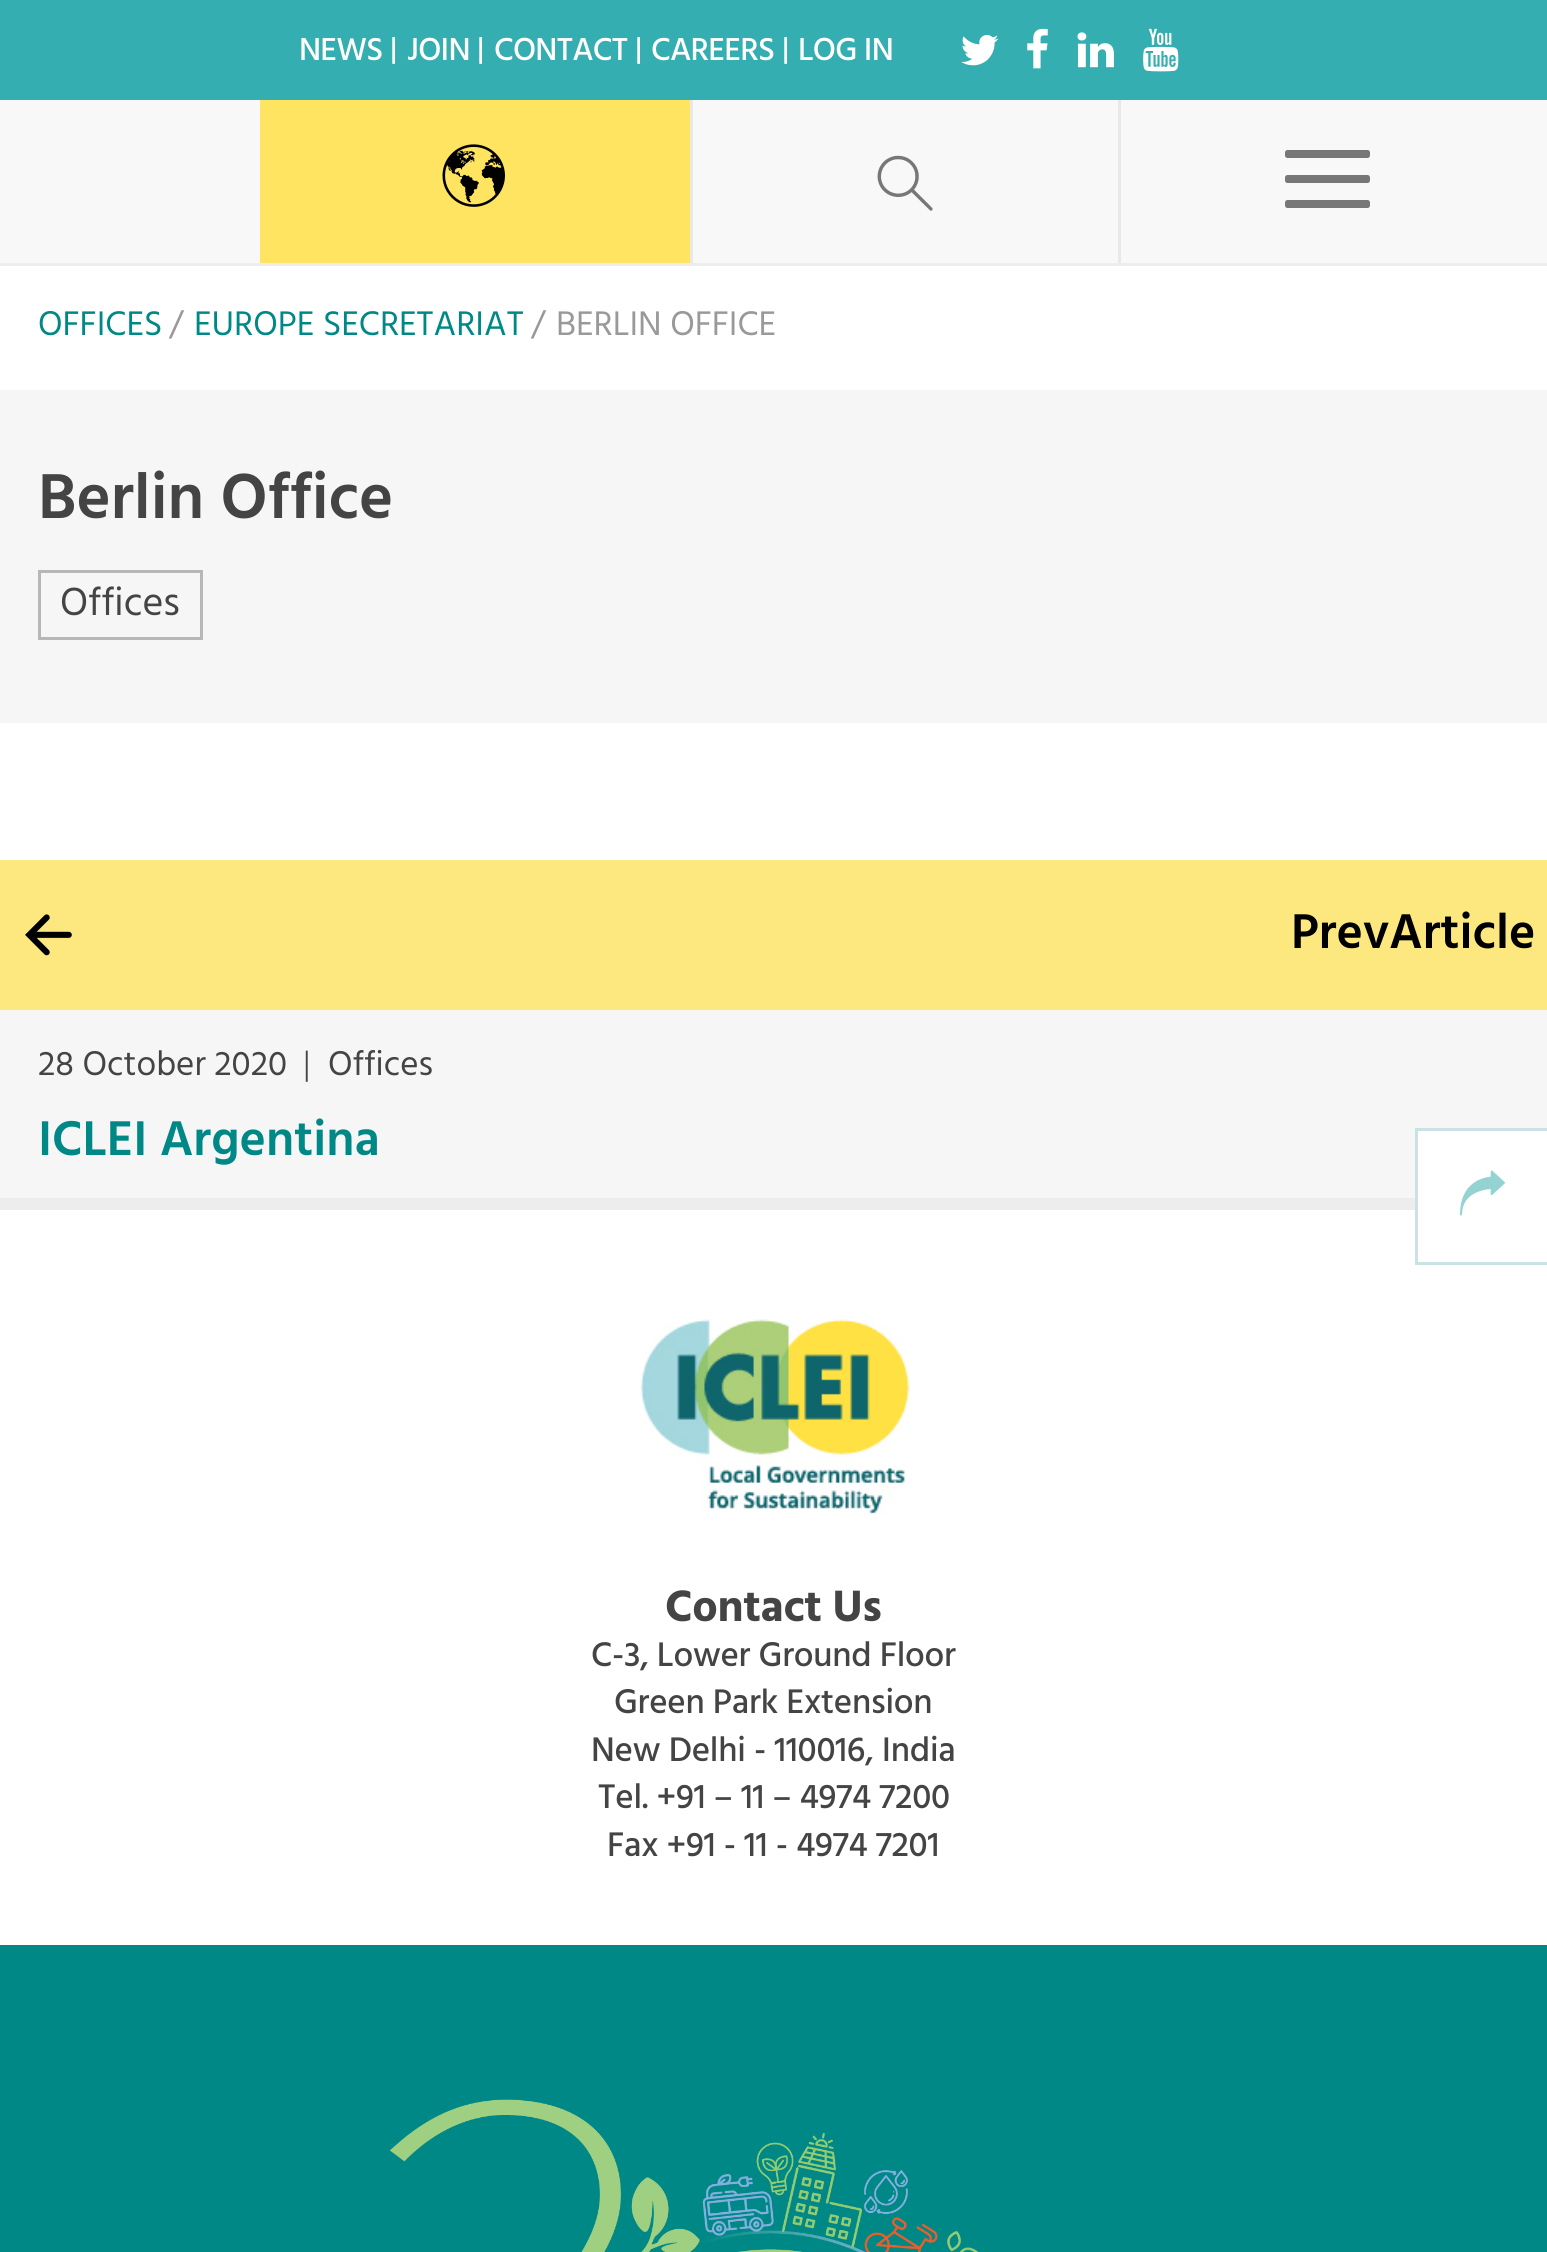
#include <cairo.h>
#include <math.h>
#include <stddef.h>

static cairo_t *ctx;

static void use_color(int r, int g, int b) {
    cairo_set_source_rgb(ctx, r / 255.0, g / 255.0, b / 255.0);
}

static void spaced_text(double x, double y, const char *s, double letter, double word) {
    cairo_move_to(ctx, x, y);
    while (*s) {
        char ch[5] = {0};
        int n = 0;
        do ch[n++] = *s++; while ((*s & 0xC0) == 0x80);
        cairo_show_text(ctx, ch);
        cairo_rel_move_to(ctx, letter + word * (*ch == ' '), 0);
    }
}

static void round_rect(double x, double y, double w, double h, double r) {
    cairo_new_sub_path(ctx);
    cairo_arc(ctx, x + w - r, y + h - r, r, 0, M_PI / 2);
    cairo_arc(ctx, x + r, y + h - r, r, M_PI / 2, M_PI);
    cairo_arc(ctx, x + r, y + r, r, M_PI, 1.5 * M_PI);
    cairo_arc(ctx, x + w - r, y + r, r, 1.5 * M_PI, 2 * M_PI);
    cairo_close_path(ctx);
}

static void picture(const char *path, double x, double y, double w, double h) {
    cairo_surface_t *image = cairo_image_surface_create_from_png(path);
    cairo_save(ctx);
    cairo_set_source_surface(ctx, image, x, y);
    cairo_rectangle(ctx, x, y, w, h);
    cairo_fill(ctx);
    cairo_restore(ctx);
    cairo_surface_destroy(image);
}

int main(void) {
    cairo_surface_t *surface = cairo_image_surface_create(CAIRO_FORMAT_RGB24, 1547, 2252);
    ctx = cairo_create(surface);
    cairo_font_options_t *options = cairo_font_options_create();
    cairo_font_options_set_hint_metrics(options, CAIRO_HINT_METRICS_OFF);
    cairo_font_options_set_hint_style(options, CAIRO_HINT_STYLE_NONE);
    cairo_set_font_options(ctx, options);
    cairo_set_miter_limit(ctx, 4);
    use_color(255, 255, 255);
    cairo_paint(ctx);
    use_color(52, 174, 177);
    cairo_rectangle(ctx, 0, 0, 1547, 100);
    cairo_fill(ctx);
    cairo_select_font_face(ctx, "Hind Medium", CAIRO_FONT_SLANT_NORMAL, CAIRO_FONT_WEIGHT_NORMAL);
    cairo_set_font_size(ctx, 32.5);
    use_color(255, 255, 255);
    spaced_text(299, 60, "NEWS", -0.75, 0);
    cairo_set_font_size(ctx, 30);
    spaced_text(390, 58, "|", -0.75, 0);
    cairo_set_font_size(ctx, 32.5);
    spaced_text(407, 60, "JOIN", -0.75, 0);
    cairo_set_font_size(ctx, 30);
    spaced_text(477, 58, "|", -0.75, 0);
    cairo_set_font_size(ctx, 32.5);
    spaced_text(494, 60, "CONTACT", -0.75, 0);
    cairo_set_font_size(ctx, 30);
    spaced_text(635, 58, "|", -0.75, 0);
    cairo_set_font_size(ctx, 32.5);
    spaced_text(651, 60, "CAREERS", -0.75, 0);
    cairo_set_font_size(ctx, 30);
    spaced_text(782, 58, "|", -0.75, 0);
    cairo_set_font_size(ctx, 32.5);
    spaced_text(798, 60, "LOG IN", -0.75, 0);
    picture("img1.png", 961, 35, 38, 31);
    picture("img2.png", 1027, 28, 21, 41);
    picture("img3.png", 1077, 32, 37, 36);
    picture("img4.png", 1143, 28, 36, 44);
    use_color(248, 248, 248);
    cairo_rectangle(ctx, 0, 100, 1547, 163);
    cairo_fill(ctx);
    use_color(237, 237, 237);
    cairo_rectangle(ctx, 0, 263, 1547, 3);
    cairo_fill(ctx);
    use_color(255, 228, 97);
    cairo_rectangle(ctx, 260, 100, 430, 163);
    cairo_fill(ctx);
    picture("img5.png", 442, 144, 63, 63);
    use_color(232, 232, 232);
    cairo_rectangle(ctx, 690, 100, 3, 163);
    cairo_fill(ctx);
    picture("img6.png", 877, 155, 56, 56);
    cairo_rectangle(ctx, 1118, 100, 3, 163);
    cairo_fill(ctx);
    use_color(119, 119, 119);
    round_rect(1285, 150, 85, 8, 2.5);
    cairo_fill(ctx);
    round_rect(1285, 175, 85, 8, 2.5);
    cairo_fill(ctx);
    round_rect(1285, 200, 85, 8, 2.5);
    cairo_fill(ctx);
    cairo_select_font_face(ctx, "Hind", CAIRO_FONT_SLANT_NORMAL, CAIRO_FONT_WEIGHT_NORMAL);
    cairo_set_font_size(ctx, 35);
    use_color(0, 136, 135);
    cairo_move_to(ctx, 38, 335);
    cairo_show_text(ctx, "OFFICES");
    use_color(153, 153, 153);
    cairo_move_to(ctx, 169, 335);
    cairo_show_text(ctx, "/");
    use_color(0, 136, 135);
    cairo_move_to(ctx, 194, 335);
    cairo_show_text(ctx, "EUROPE SECRETARIAT");
    use_color(153, 153, 153);
    cairo_move_to(ctx, 531, 335);
    cairo_show_text(ctx, "/");
    cairo_move_to(ctx, 556, 335);
    cairo_show_text(ctx, "BERLIN OFFICE");
    use_color(246, 246, 246);
    cairo_rectangle(ctx, 0, 390, 1547, 333);
    cairo_fill(ctx);
    cairo_select_font_face(ctx, "Hind SemiBold", CAIRO_FONT_SLANT_NORMAL, CAIRO_FONT_WEIGHT_NORMAL);
    cairo_set_font_size(ctx, 65);
    use_color(68, 68, 68);
    cairo_move_to(ctx, 38, 518);
    cairo_show_text(ctx, "Berlin Office");
    cairo_rectangle(ctx, 39.5, 571.5, 162, 67);
    use_color(183, 183, 183);
    cairo_set_line_width(ctx, 3);
    cairo_stroke(ctx);
    cairo_select_font_face(ctx, "Hind", CAIRO_FONT_SLANT_NORMAL, CAIRO_FONT_WEIGHT_NORMAL);
    cairo_set_font_size(ctx, 40);
    use_color(68, 68, 68);
    cairo_move_to(ctx, 60, 615);
    cairo_show_text(ctx, "Offices");
    use_color(253, 232, 127);
    cairo_rectangle(ctx, 0, 860, 1547, 150);
    cairo_fill(ctx);
    picture("img7.png", 25, 914, 47, 42);
    cairo_select_font_face(ctx, "Hind SemiBold", CAIRO_FONT_SLANT_NORMAL, CAIRO_FONT_WEIGHT_NORMAL);
    cairo_set_font_size(ctx, 50);
    use_color(0, 0, 0);
    cairo_move_to(ctx, 1291, 948);
    cairo_show_text(ctx, "PrevArticle");
    use_color(246, 246, 246);
    cairo_rectangle(ctx, 0, 1010, 1547, 188);
    cairo_fill(ctx);
    cairo_select_font_face(ctx, "Hind", CAIRO_FONT_SLANT_NORMAL, CAIRO_FONT_WEIGHT_NORMAL);
    cairo_set_font_size(ctx, 35);
    use_color(68, 68, 68);
    cairo_move_to(ctx, 38, 1075);
    cairo_show_text(ctx, "28 October 2020");
    cairo_select_font_face(ctx, "Hind Light", CAIRO_FONT_SLANT_NORMAL, CAIRO_FONT_WEIGHT_NORMAL);
    cairo_move_to(ctx, 303, 1075);
    cairo_show_text(ctx, "|");
    cairo_select_font_face(ctx, "Hind", CAIRO_FONT_SLANT_NORMAL, CAIRO_FONT_WEIGHT_NORMAL);
    cairo_move_to(ctx, 328, 1075);
    cairo_show_text(ctx, "Offices");
    cairo_select_font_face(ctx, "Hind SemiBold", CAIRO_FONT_SLANT_NORMAL, CAIRO_FONT_WEIGHT_NORMAL);
    cairo_set_font_size(ctx, 50);
    use_color(0, 136, 135);
    cairo_move_to(ctx, 38, 1155);
    cairo_show_text(ctx, "ICLEI Argentina");
    use_color(237, 237, 237);
    cairo_rectangle(ctx, 0, 1198, 1415, 12);
    cairo_fill(ctx);
    use_color(255, 255, 255);
    cairo_rectangle(ctx, 1418, 1131, 129, 67);
    cairo_fill(ctx);
    cairo_rectangle(ctx, 1416.5, 1129.5, 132, 134);
    use_color(202, 226, 227);
    cairo_stroke(ctx);
    picture("img8.png", 1460, 1170, 45, 46);
    use_color(0, 136, 135);
    cairo_rectangle(ctx, 0, 1945, 1547, 307);
    cairo_fill(ctx);
    picture("img9.png", 640, 1319, 270, 195);
    cairo_select_font_face(ctx, "Hind", CAIRO_FONT_SLANT_NORMAL, CAIRO_FONT_WEIGHT_BOLD);
    cairo_set_font_size(ctx, 45);
    use_color(68, 68, 68);
    spaced_text(665, 1621, "Contact Us", -0.25, 0);
    cairo_select_font_face(ctx, "Hind Medium", CAIRO_FONT_SLANT_NORMAL, CAIRO_FONT_WEIGHT_NORMAL);
    cairo_set_font_size(ctx, 35);
    spaced_text(591, 1666, "C-3, Lower Ground Floor", -0.25, 0);
    spaced_text(614, 1713, "Green Park Extension", -0.25, 0);
    spaced_text(591, 1761, "New Delhi - 110016, India", -0.25, 0);
    spaced_text(598, 1808, "Tel. +91 – 11 – 4974 7200", -0.25, 0);
    spaced_text(607, 1856, "Fax +91 - 11 - 4974 7201", -0.25, 0);
    picture("img10.png", 389, 2099, 589, 153);
    cairo_surface_write_to_png(surface, "result.png");
    cairo_font_options_destroy(options);
    cairo_destroy(ctx);
    cairo_surface_destroy(surface);
    return 0;
}
